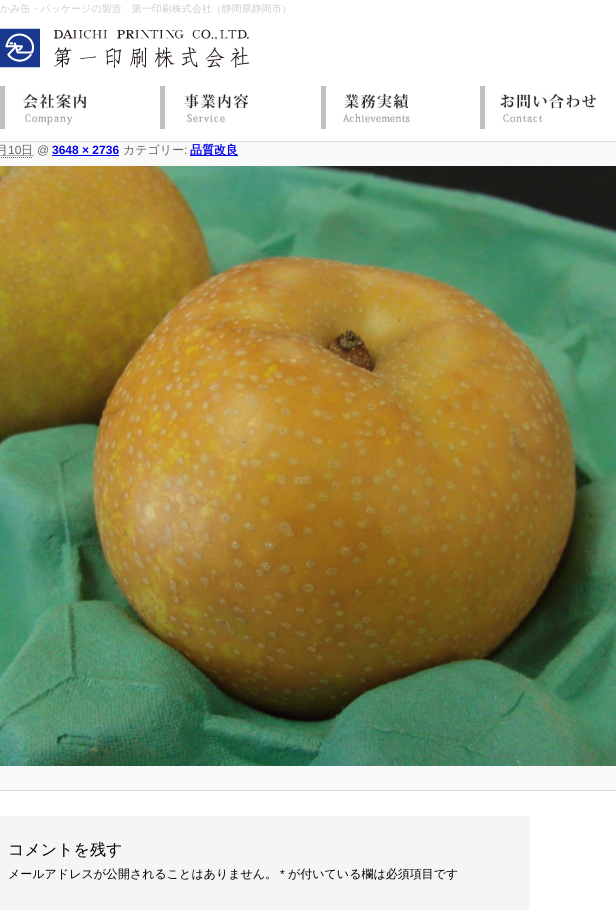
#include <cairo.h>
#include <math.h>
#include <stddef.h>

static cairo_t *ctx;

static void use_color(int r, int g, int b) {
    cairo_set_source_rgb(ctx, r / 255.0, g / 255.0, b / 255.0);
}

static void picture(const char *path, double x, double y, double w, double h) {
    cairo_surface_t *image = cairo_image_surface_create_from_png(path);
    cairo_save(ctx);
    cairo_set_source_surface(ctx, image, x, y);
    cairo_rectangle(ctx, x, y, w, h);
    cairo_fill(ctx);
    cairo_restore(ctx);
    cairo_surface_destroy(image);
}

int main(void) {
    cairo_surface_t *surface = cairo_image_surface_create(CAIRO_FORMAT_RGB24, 616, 910);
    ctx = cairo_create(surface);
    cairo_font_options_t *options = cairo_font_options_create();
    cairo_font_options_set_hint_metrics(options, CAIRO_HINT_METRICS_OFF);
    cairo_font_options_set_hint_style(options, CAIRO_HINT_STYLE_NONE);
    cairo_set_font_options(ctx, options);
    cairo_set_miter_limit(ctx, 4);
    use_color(255, 255, 255);
    cairo_paint(ctx);
    cairo_select_font_face(ctx, "WenQuanYi Zen Hei Medium", CAIRO_FONT_SLANT_NORMAL, CAIRO_FONT_WEIGHT_NORMAL);
    cairo_set_font_size(ctx, 10);
    use_color(204, 204, 204);
    cairo_move_to(ctx, 0, 12);
    cairo_show_text(ctx, "かみ缶・パッケージの製造　第一印刷株式会社（静岡県静岡市）");
    picture("img1.png", 0, 28, 250, 40);
    picture("img2.png", 0, 86, 87, 43);
    picture("img3.png", 160, 86, 88, 43);
    picture("img4.png", 321, 86, 90, 43);
    picture("img5.png", 480, 86, 117, 43);
    use_color(249, 249, 249);
    cairo_rectangle(ctx, 0, 142, 616, 648);
    cairo_fill(ctx);
    use_color(221, 221, 221);
    cairo_rectangle(ctx, 0, 141, 616, 1);
    cairo_fill(ctx);
    cairo_rectangle(ctx, 0, 790, 616, 1);
    cairo_fill(ctx);
    picture("img6.png", 0, 166, 616, 600);
    cairo_new_path(ctx);
    cairo_move_to(ctx, -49, 157.5);
    cairo_line_to(ctx, 33, 157.5);
    cairo_move_to(ctx, -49.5, 155.5);
    cairo_line_to(ctx, 33.5, 155.5);
    use_color(102, 102, 102);
    cairo_set_line_width(ctx, 1);
    cairo_set_dash(ctx, (double[]){1, 1}, 2, 0);
    cairo_stroke(ctx);
    cairo_set_font_size(ctx, 12);
    cairo_move_to(ctx, -4, 154);
    cairo_show_text(ctx, "月");
    cairo_select_font_face(ctx, "Liberation Sans", CAIRO_FONT_SLANT_NORMAL, CAIRO_FONT_WEIGHT_NORMAL);
    cairo_move_to(ctx, 8, 154);
    cairo_show_text(ctx, "10");
    cairo_select_font_face(ctx, "WenQuanYi Zen Hei Medium", CAIRO_FONT_SLANT_NORMAL, CAIRO_FONT_WEIGHT_NORMAL);
    cairo_move_to(ctx, 21, 154);
    cairo_show_text(ctx, "日");
    cairo_select_font_face(ctx, "Liberation Sans", CAIRO_FONT_SLANT_NORMAL, CAIRO_FONT_WEIGHT_NORMAL);
    cairo_move_to(ctx, 37, 154);
    cairo_show_text(ctx, "@");
    cairo_select_font_face(ctx, "Liberation Sans", CAIRO_FONT_SLANT_NORMAL, CAIRO_FONT_WEIGHT_BOLD);
    use_color(0, 0, 238);
    cairo_move_to(ctx, 52, 154);
    cairo_show_text(ctx, "3648 × 2736");
    cairo_rectangle(ctx, 52, 155, 67, 1);
    cairo_fill(ctx);
    cairo_select_font_face(ctx, "WenQuanYi Zen Hei Medium", CAIRO_FONT_SLANT_NORMAL, CAIRO_FONT_WEIGHT_NORMAL);
    use_color(102, 102, 102);
    cairo_move_to(ctx, 123, 154);
    cairo_show_text(ctx, "カテゴリー");
    cairo_select_font_face(ctx, "Liberation Sans", CAIRO_FONT_SLANT_NORMAL, CAIRO_FONT_WEIGHT_NORMAL);
    cairo_move_to(ctx, 184, 154);
    cairo_show_text(ctx, ":");
    use_color(0, 0, 238);
    cairo_rectangle(ctx, 190, 155, 48, 1);
    cairo_fill(ctx);
    cairo_select_font_face(ctx, "WenQuanYi Zen Hei", CAIRO_FONT_SLANT_NORMAL, CAIRO_FONT_WEIGHT_BOLD);
    cairo_move_to(ctx, 190, 154);
    cairo_show_text(ctx, "品質改良");
    use_color(245, 245, 245);
    cairo_rectangle(ctx, 0, 816, 530, 94);
    cairo_fill(ctx);
    cairo_select_font_face(ctx, "WenQuanYi Zen Hei Medium", CAIRO_FONT_SLANT_NORMAL, CAIRO_FONT_WEIGHT_NORMAL);
    cairo_set_font_size(ctx, 16);
    use_color(0, 0, 0);
    cairo_move_to(ctx, 8, 855);
    cairo_show_text(ctx, "コメントを残す");
    cairo_set_font_size(ctx, 12);
    cairo_move_to(ctx, 8, 878);
    cairo_show_text(ctx, "メールアドレスが公開されることはありません。");
    cairo_select_font_face(ctx, "Liberation Sans", CAIRO_FONT_SLANT_NORMAL, CAIRO_FONT_WEIGHT_NORMAL);
    cairo_move_to(ctx, 280, 878);
    cairo_show_text(ctx, "*");
    cairo_select_font_face(ctx, "WenQuanYi Zen Hei Medium", CAIRO_FONT_SLANT_NORMAL, CAIRO_FONT_WEIGHT_NORMAL);
    cairo_move_to(ctx, 288, 878);
    cairo_show_text(ctx, "が付いている欄は必須項目です");
    cairo_surface_write_to_png(surface, "result.png");
    cairo_font_options_destroy(options);
    cairo_destroy(ctx);
    cairo_surface_destroy(surface);
    return 0;
}
